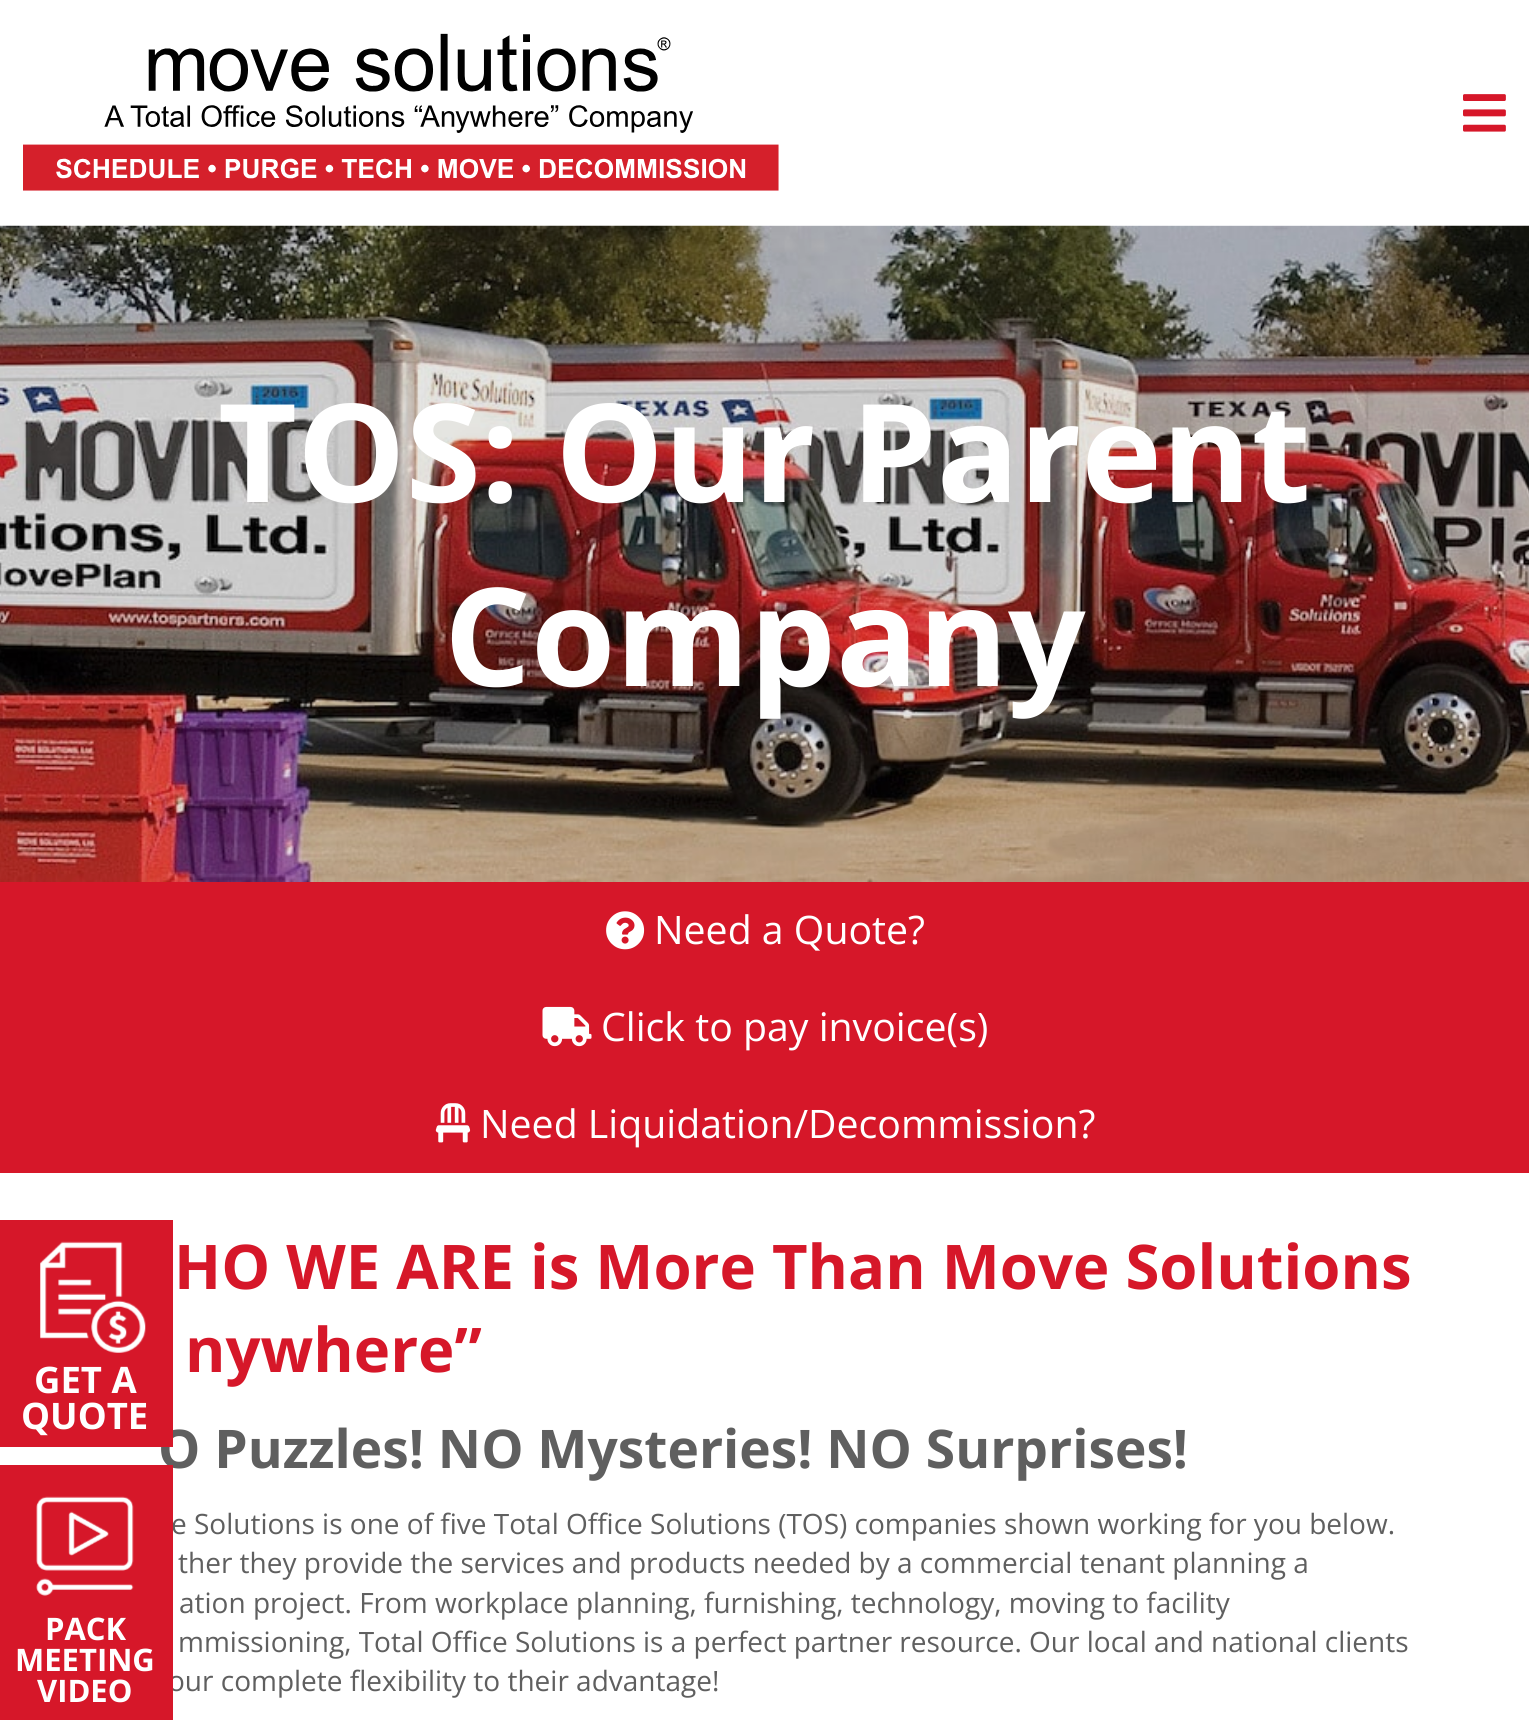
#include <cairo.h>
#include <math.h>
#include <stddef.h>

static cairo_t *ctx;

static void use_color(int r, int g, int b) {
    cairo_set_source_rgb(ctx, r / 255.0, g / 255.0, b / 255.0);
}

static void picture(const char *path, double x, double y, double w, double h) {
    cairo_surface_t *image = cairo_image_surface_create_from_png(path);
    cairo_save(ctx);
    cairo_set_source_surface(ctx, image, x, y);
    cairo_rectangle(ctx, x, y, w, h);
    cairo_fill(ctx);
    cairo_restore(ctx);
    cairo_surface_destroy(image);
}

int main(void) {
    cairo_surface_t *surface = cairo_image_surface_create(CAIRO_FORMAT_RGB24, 1529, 1720);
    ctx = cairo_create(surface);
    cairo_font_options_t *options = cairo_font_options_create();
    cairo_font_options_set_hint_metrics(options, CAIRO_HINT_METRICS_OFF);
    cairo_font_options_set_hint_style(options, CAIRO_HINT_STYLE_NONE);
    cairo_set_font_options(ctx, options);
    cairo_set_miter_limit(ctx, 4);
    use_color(255, 255, 255);
    cairo_paint(ctx);
    picture("img1.png", 23, 33, 756, 158);
    picture("img2.png", 1463, 94, 43, 38);
    picture("img3.png", 0, 225, 1529, 657);
    cairo_select_font_face(ctx, "Open Sans", CAIRO_FONT_SLANT_NORMAL, CAIRO_FONT_WEIGHT_BOLD);
    cairo_set_font_size(ctx, 136.5);
    use_color(255, 255, 255);
    cairo_move_to(ctx, 218, 502);
    cairo_show_text(ctx, "TOS: Our Parent");
    cairo_move_to(ctx, 444, 686);
    cairo_show_text(ctx, "Company");
    use_color(214, 23, 41);
    cairo_rectangle(ctx, 0, 882, 1529, 291);
    cairo_fill(ctx);
    picture("img4.png", 606, 911, 39, 39);
    cairo_select_font_face(ctx, "Open Sans", CAIRO_FONT_SLANT_NORMAL, CAIRO_FONT_WEIGHT_NORMAL);
    cairo_set_font_size(ctx, 39.25);
    use_color(255, 255, 255);
    cairo_move_to(ctx, 654, 944);
    cairo_show_text(ctx, "Need a Quote?");
    picture("img5.png", 542, 1006, 50, 41);
    cairo_move_to(ctx, 601, 1041);
    cairo_show_text(ctx, "Click to pay invoice(s)");
    picture("img6.png", 435, 1103, 36, 40);
    cairo_move_to(ctx, 480, 1138);
    cairo_show_text(ctx, "Need Liquidation/Decommission?");
    cairo_select_font_face(ctx, "Open Sans", CAIRO_FONT_SLANT_NORMAL, CAIRO_FONT_WEIGHT_BOLD);
    cairo_set_font_size(ctx, 53.25);
    use_color(95, 95, 95);
    cairo_move_to(ctx, 158, 1468);
    cairo_show_text(ctx, "O Puzzles! NO Mysteries! NO Surprises!");
    use_color(214, 23, 41);
    cairo_rectangle(ctx, 0, 1220, 173, 227);
    cairo_fill(ctx);
    picture("img7.png", 40, 1241, 106, 112);
    cairo_set_font_size(ctx, 36.5);
    use_color(255, 255, 255);
    cairo_move_to(ctx, 34, 1393);
    cairo_show_text(ctx, "GET A");
    cairo_move_to(ctx, 21, 1429);
    cairo_show_text(ctx, "QUOTE");
    cairo_select_font_face(ctx, "Open Sans", CAIRO_FONT_SLANT_NORMAL, CAIRO_FONT_WEIGHT_NORMAL);
    cairo_set_font_size(ctx, 28);
    use_color(95, 95, 95);
    cairo_move_to(ctx, 171, 1534);
    cairo_show_text(ctx, "e Solutions is one of five Total Office Solutions (TOS) companies shown working for you below.");
    cairo_move_to(ctx, 168, 1691);
    cairo_show_text(ctx, "our complete flexibility to their advantage!");
    use_color(214, 23, 41);
    cairo_rectangle(ctx, 0, 1465, 173, 255);
    cairo_fill(ctx);
    picture("img8.png", 36, 1496, 98, 100);
    cairo_select_font_face(ctx, "Open Sans", CAIRO_FONT_SLANT_NORMAL, CAIRO_FONT_WEIGHT_BOLD);
    cairo_set_font_size(ctx, 31);
    use_color(255, 255, 255);
    cairo_move_to(ctx, 45, 1640);
    cairo_show_text(ctx, "PACK");
    cairo_move_to(ctx, 15, 1671);
    cairo_show_text(ctx, "MEETING");
    cairo_move_to(ctx, 37, 1702);
    cairo_show_text(ctx, "VIDEO");
    cairo_set_font_size(ctx, 61.6);
    use_color(214, 23, 41);
    cairo_move_to(ctx, 174, 1289);
    cairo_show_text(ctx, "HO WE ARE is More Than Move Solutions");
    cairo_move_to(ctx, 185, 1372);
    cairo_show_text(ctx, "nywhere”");
    cairo_select_font_face(ctx, "Open Sans", CAIRO_FONT_SLANT_NORMAL, CAIRO_FONT_WEIGHT_NORMAL);
    cairo_set_font_size(ctx, 28);
    use_color(95, 95, 95);
    cairo_move_to(ctx, 178, 1573);
    cairo_show_text(ctx, "ther they provide the services and products needed by a commercial tenant planning a");
    cairo_move_to(ctx, 179, 1613);
    cairo_show_text(ctx, "ation project. From workplace planning, furnishing, technology, moving to facility");
    cairo_move_to(ctx, 178, 1652);
    cairo_show_text(ctx, "mmissioning, Total Office Solutions is a perfect partner resource. Our local and national clients");
    cairo_surface_write_to_png(surface, "result.png");
    cairo_font_options_destroy(options);
    cairo_destroy(ctx);
    cairo_surface_destroy(surface);
    return 0;
}
